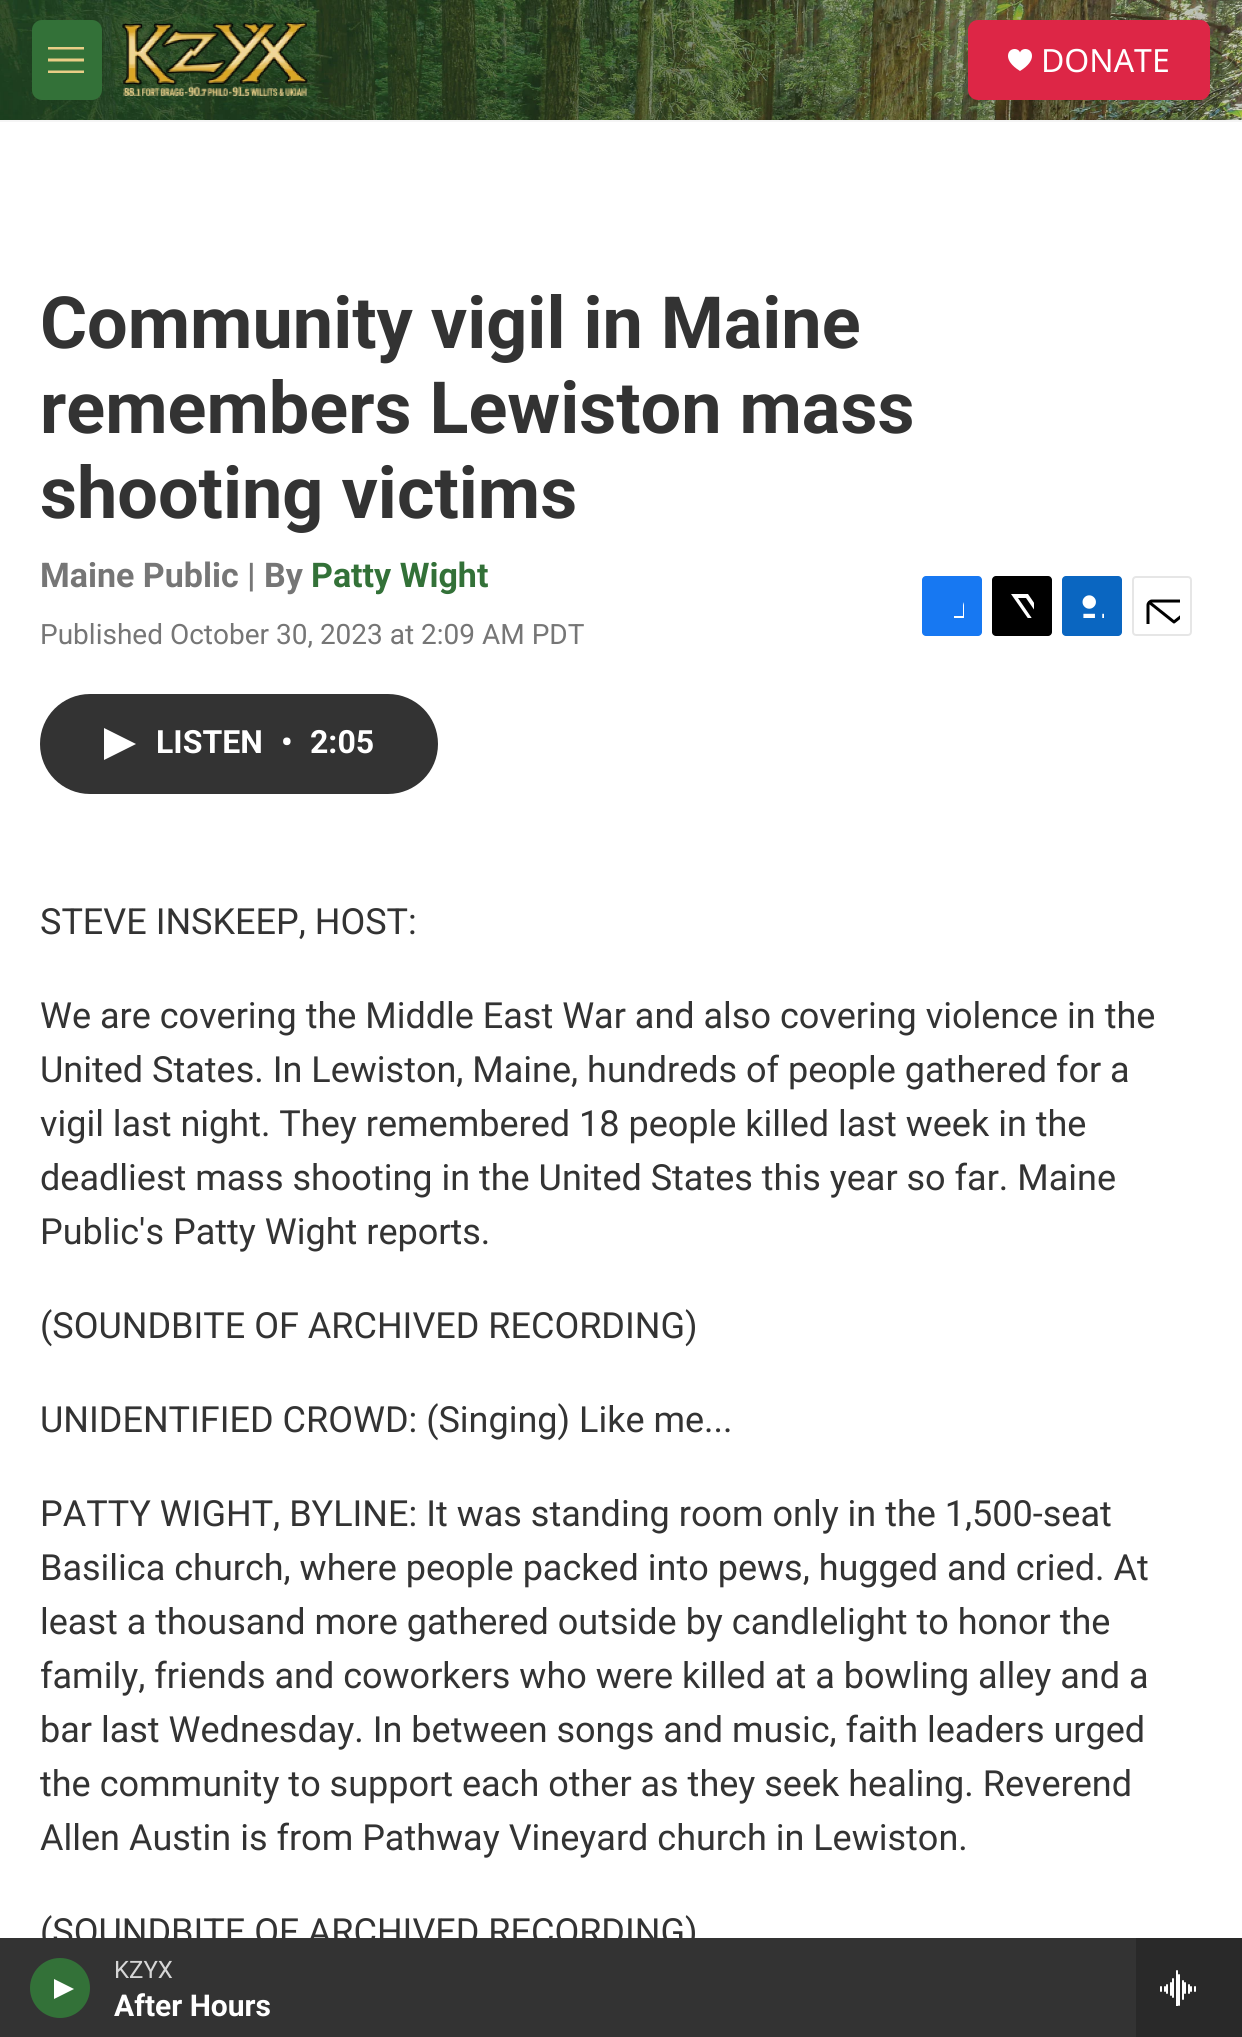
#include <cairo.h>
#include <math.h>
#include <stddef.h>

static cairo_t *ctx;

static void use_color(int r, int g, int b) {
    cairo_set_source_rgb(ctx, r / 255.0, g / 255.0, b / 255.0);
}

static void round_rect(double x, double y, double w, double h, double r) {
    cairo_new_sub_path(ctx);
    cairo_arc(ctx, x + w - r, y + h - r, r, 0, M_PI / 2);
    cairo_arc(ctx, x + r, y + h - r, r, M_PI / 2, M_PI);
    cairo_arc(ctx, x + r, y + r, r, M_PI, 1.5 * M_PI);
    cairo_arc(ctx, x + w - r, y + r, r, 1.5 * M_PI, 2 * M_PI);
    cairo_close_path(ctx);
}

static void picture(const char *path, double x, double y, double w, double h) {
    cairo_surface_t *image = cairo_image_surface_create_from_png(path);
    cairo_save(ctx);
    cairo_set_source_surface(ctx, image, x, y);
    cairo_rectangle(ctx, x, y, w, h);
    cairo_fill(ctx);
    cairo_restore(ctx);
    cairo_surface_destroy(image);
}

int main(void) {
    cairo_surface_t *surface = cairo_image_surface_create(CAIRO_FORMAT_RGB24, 1242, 2037);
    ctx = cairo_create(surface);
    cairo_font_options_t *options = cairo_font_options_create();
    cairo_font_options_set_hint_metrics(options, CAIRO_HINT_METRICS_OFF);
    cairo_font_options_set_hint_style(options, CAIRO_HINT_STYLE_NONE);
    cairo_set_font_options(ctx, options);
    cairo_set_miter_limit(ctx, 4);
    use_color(255, 255, 255);
    cairo_paint(ctx);
    use_color(245, 245, 245);
    cairo_rectangle(ctx, 0, 120, 1242, 2);
    cairo_fill(ctx);
    picture("img1.png", 0, 0, 1242, 120);
    use_color(51, 113, 56);
    round_rect(32, 20, 70, 80, 10);
    cairo_fill(ctx);
    use_color(233, 206, 134);
    cairo_set_fill_rule(ctx, CAIRO_FILL_RULE_EVEN_ODD);
    cairo_new_path(ctx);
    cairo_move_to(ctx, 48, 61.5);
    cairo_line_to(ctx, 48, 58.5);
    cairo_line_to(ctx, 84, 58.5);
    cairo_line_to(ctx, 84, 61.5);
    cairo_close_path(ctx);
    cairo_move_to(ctx, 48, 49.5);
    cairo_line_to(ctx, 48, 47);
    cairo_line_to(ctx, 84, 47);
    cairo_line_to(ctx, 84, 49.5);
    cairo_close_path(ctx);
    cairo_move_to(ctx, 48, 73);
    cairo_line_to(ctx, 48, 70.5);
    cairo_line_to(ctx, 84, 70.5);
    cairo_line_to(ctx, 84, 73);
    cairo_close_path(ctx);
    cairo_fill(ctx);
    picture("img2.png", 122, 21, 186, 75);
    use_color(221, 38, 70);
    round_rect(968, 20, 242, 80, 10);
    cairo_fill(ctx);
    picture("img3.png", 1008, 49, 24, 22);
    cairo_select_font_face(ctx, "Noto Sans", CAIRO_FONT_SLANT_NORMAL, CAIRO_FONT_WEIGHT_NORMAL);
    cairo_set_font_size(ctx, 32);
    use_color(255, 255, 255);
    cairo_move_to(ctx, 1041, 72);
    cairo_show_text(ctx, "DONATE");
    use_color(51, 51, 51);
    cairo_rectangle(ctx, 0, 1938, 1136, 99);
    cairo_fill(ctx);
    use_color(51, 113, 56);
    cairo_arc(ctx, 60, 1988, 30, 0, 2 * M_PI);
    cairo_fill(ctx);
    use_color(255, 255, 255);
    cairo_set_fill_rule(ctx, CAIRO_FILL_RULE_WINDING);
    cairo_new_path(ctx);
    cairo_move_to(ctx, 54, 1979);
    cairo_line_to(ctx, 74, 1989);
    cairo_line_to(ctx, 54, 1999);
    cairo_close_path(ctx);
    cairo_fill(ctx);
    cairo_select_font_face(ctx, "Roboto", CAIRO_FONT_SLANT_NORMAL, CAIRO_FONT_WEIGHT_NORMAL);
    cairo_set_font_size(ctx, 24);
    use_color(214, 214, 214);
    cairo_move_to(ctx, 114, 1978);
    cairo_show_text(ctx, "KZYX");
    cairo_select_font_face(ctx, "Roboto", CAIRO_FONT_SLANT_NORMAL, CAIRO_FONT_WEIGHT_BOLD);
    cairo_set_font_size(ctx, 30);
    use_color(255, 255, 255);
    cairo_move_to(ctx, 114, 2016);
    cairo_show_text(ctx, "After Hours");
    use_color(41, 41, 41);
    cairo_rectangle(ctx, 1136, 1938, 106, 99);
    cairo_fill(ctx);
    picture("img4.png", 1160, 1970, 36, 36);
    cairo_set_font_size(ctx, 72);
    use_color(51, 51, 51);
    cairo_move_to(ctx, 40, 348);
    cairo_show_text(ctx, "Community vigil in Maine");
    cairo_move_to(ctx, 40, 433);
    cairo_show_text(ctx, "remembers Lewiston mass");
    cairo_move_to(ctx, 40, 518);
    cairo_show_text(ctx, "shooting victims");
    cairo_set_font_size(ctx, 34);
    use_color(118, 118, 118);
    cairo_move_to(ctx, 40, 587);
    cairo_show_text(ctx, "Maine Public | By");
    use_color(51, 113, 56);
    cairo_move_to(ctx, 311, 587);
    cairo_show_text(ctx, "Patty Wight");
    cairo_select_font_face(ctx, "Roboto", CAIRO_FONT_SLANT_NORMAL, CAIRO_FONT_WEIGHT_NORMAL);
    cairo_set_font_size(ctx, 28);
    use_color(118, 118, 118);
    cairo_move_to(ctx, 40, 644);
    cairo_show_text(ctx, "Published October 30, 2023 at 2:09 AM PDT");
    use_color(23, 120, 242);
    round_rect(922, 576, 60, 60, 4);
    cairo_fill(ctx);
    cairo_save(ctx);
    cairo_rectangle(ctx, 940, 594, 24, 24);
    cairo_clip(ctx);
    use_color(255, 255, 255);
    cairo_new_path(ctx);
    cairo_move_to(ctx, 973, 636);
    cairo_line_to(ctx, 963, 636);
    cairo_line_to(ctx, 963, 626);
    cairo_line_to(ctx, 954, 626);
    cairo_line_to(ctx, 954, 616);
    cairo_line_to(ctx, 963, 616);
    cairo_line_to(ctx, 963, 605);
    cairo_curve_to(ctx, 965, 596, 974, 594, 982, 595);
    cairo_line_to(ctx, 982, 604);
    cairo_curve_to(ctx, 971, 604, 973, 607, 973, 616);
    cairo_line_to(ctx, 982, 616);
    cairo_line_to(ctx, 982, 621);
    cairo_line_to(ctx, 981, 626);
    cairo_line_to(ctx, 973, 626);
    cairo_close_path(ctx);
    cairo_fill(ctx);
    cairo_restore(ctx);
    use_color(0, 0, 0);
    round_rect(992, 576, 60, 60, 4);
    cairo_fill(ctx);
    cairo_save(ctx);
    cairo_rectangle(ctx, 1010, 594, 24, 24);
    cairo_clip(ctx);
    use_color(255, 255, 255);
    cairo_new_path(ctx);
    cairo_move_to(ctx, 1046, 619);
    cairo_line_to(ctx, 1052, 628);
    cairo_curve_to(ctx, 1052, 630, 1053, 633, 1051, 634);
    cairo_line_to(ctx, 1026, 598);
    cairo_line_to(ctx, 1018, 598);
    cairo_line_to(ctx, 1044, 636);
    cairo_line_to(ctx, 1039, 636);
    cairo_line_to(ctx, 1036, 631);
    cairo_line_to(ctx, 1032, 636);
    cairo_line_to(ctx, 1026, 636);
    cairo_line_to(ctx, 1034, 627);
    cairo_line_to(ctx, 1011, 594);
    cairo_line_to(ctx, 1028, 594);
    cairo_line_to(ctx, 1043, 616);
    cairo_line_to(ctx, 1052, 606);
    cairo_line_to(ctx, 1052, 612);
    cairo_close_path(ctx);
    cairo_fill(ctx);
    cairo_restore(ctx);
    use_color(10, 102, 193);
    round_rect(1062, 576, 60, 60, 4);
    cairo_fill(ctx);
    picture("img5.png", 1082, 595, 22, 23);
    round_rect(1133, 577, 58, 58, 3);
    use_color(230, 230, 230);
    cairo_stroke(ctx);
    cairo_save(ctx);
    cairo_rectangle(ctx, 1144, 588, 36, 36);
    cairo_clip(ctx);
    cairo_new_path(ctx);
    cairo_move_to(ctx, 1200, 632);
    cairo_curve_to(ctx, 1200, 634, 1198, 635.5, 1196, 635.5);
    cairo_line_to(ctx, 1152, 635.5);
    cairo_curve_to(ctx, 1150, 635.5, 1148, 634, 1148, 632);
    cairo_line_to(ctx, 1148, 605);
    cairo_curve_to(ctx, 1148, 603, 1150, 601, 1152, 601);
    cairo_line_to(ctx, 1196, 601);
    cairo_curve_to(ctx, 1198, 601, 1200, 603, 1200, 605);
    cairo_close_path(ctx);
    cairo_move_to(ctx, 1198.5, 602.5);
    cairo_line_to(ctx, 1174, 622);
    cairo_line_to(ctx, 1149.5, 602.5);
    use_color(0, 0, 0);
    cairo_set_line_width(ctx, 3);
    cairo_set_line_cap(ctx, CAIRO_LINE_CAP_ROUND);
    cairo_set_line_join(ctx, CAIRO_LINE_JOIN_ROUND);
    cairo_stroke(ctx);
    cairo_restore(ctx);
    use_color(51, 51, 51);
    round_rect(40, 694, 398, 100, 50);
    cairo_fill(ctx);
    use_color(255, 255, 255);
    cairo_new_path(ctx);
    cairo_move_to(ctx, 104, 728);
    cairo_line_to(ctx, 136, 744);
    cairo_line_to(ctx, 104, 760);
    cairo_close_path(ctx);
    cairo_fill(ctx);
    cairo_select_font_face(ctx, "Roboto", CAIRO_FONT_SLANT_NORMAL, CAIRO_FONT_WEIGHT_BOLD);
    cairo_set_font_size(ctx, 32);
    cairo_move_to(ctx, 156, 753);
    cairo_show_text(ctx, "LISTEN");
    cairo_move_to(ctx, 281, 753);
    cairo_show_text(ctx, "•");
    cairo_move_to(ctx, 310, 753);
    cairo_show_text(ctx, "2:05");
    cairo_select_font_face(ctx, "Roboto", CAIRO_FONT_SLANT_NORMAL, CAIRO_FONT_WEIGHT_NORMAL);
    cairo_set_font_size(ctx, 36);
    use_color(51, 51, 51);
    cairo_move_to(ctx, 40, 934);
    cairo_show_text(ctx, "STEVE INSKEEP, HOST:");
    cairo_move_to(ctx, 40, 1028);
    cairo_show_text(ctx, "We are covering the Middle East War and also covering violence in the");
    cairo_move_to(ctx, 40, 1082);
    cairo_show_text(ctx, "United States. In Lewiston, Maine, hundreds of people gathered for a");
    cairo_move_to(ctx, 40, 1136);
    cairo_show_text(ctx, "vigil last night. They remembered 18 people killed last week in the");
    cairo_move_to(ctx, 40, 1190);
    cairo_show_text(ctx, "deadliest mass shooting in the United States this year so far. Maine");
    cairo_move_to(ctx, 40, 1244);
    cairo_show_text(ctx, "Public's Patty Wight reports.");
    cairo_move_to(ctx, 40, 1338);
    cairo_show_text(ctx, "(SOUNDBITE OF ARCHIVED RECORDING)");
    cairo_move_to(ctx, 40, 1432);
    cairo_show_text(ctx, "UNIDENTIFIED CROWD: (Singing) Like me...");
    cairo_move_to(ctx, 40, 1526);
    cairo_show_text(ctx, "PATTY WIGHT, BYLINE: It was standing room only in the 1,500-seat");
    cairo_move_to(ctx, 40, 1580);
    cairo_show_text(ctx, "Basilica church, where people packed into pews, hugged and cried. At");
    cairo_move_to(ctx, 40, 1634);
    cairo_show_text(ctx, "least a thousand more gathered outside by candlelight to honor the");
    cairo_move_to(ctx, 40, 1688);
    cairo_show_text(ctx, "family, friends and coworkers who were killed at a bowling alley and a");
    cairo_move_to(ctx, 40, 1742);
    cairo_show_text(ctx, "bar last Wednesday. In between songs and music, faith leaders urged");
    cairo_move_to(ctx, 40, 1796);
    cairo_show_text(ctx, "the community to support each other as they seek healing. Reverend");
    cairo_move_to(ctx, 40, 1850);
    cairo_show_text(ctx, "Allen Austin is from Pathway Vineyard church in Lewiston.");
    cairo_move_to(ctx, 40, 1944);
    cairo_show_text(ctx, "(SOUNDBITE OF ARCHIVED RECORDING)");
    cairo_surface_write_to_png(surface, "result.png");
    cairo_font_options_destroy(options);
    cairo_destroy(ctx);
    cairo_surface_destroy(surface);
    return 0;
}
